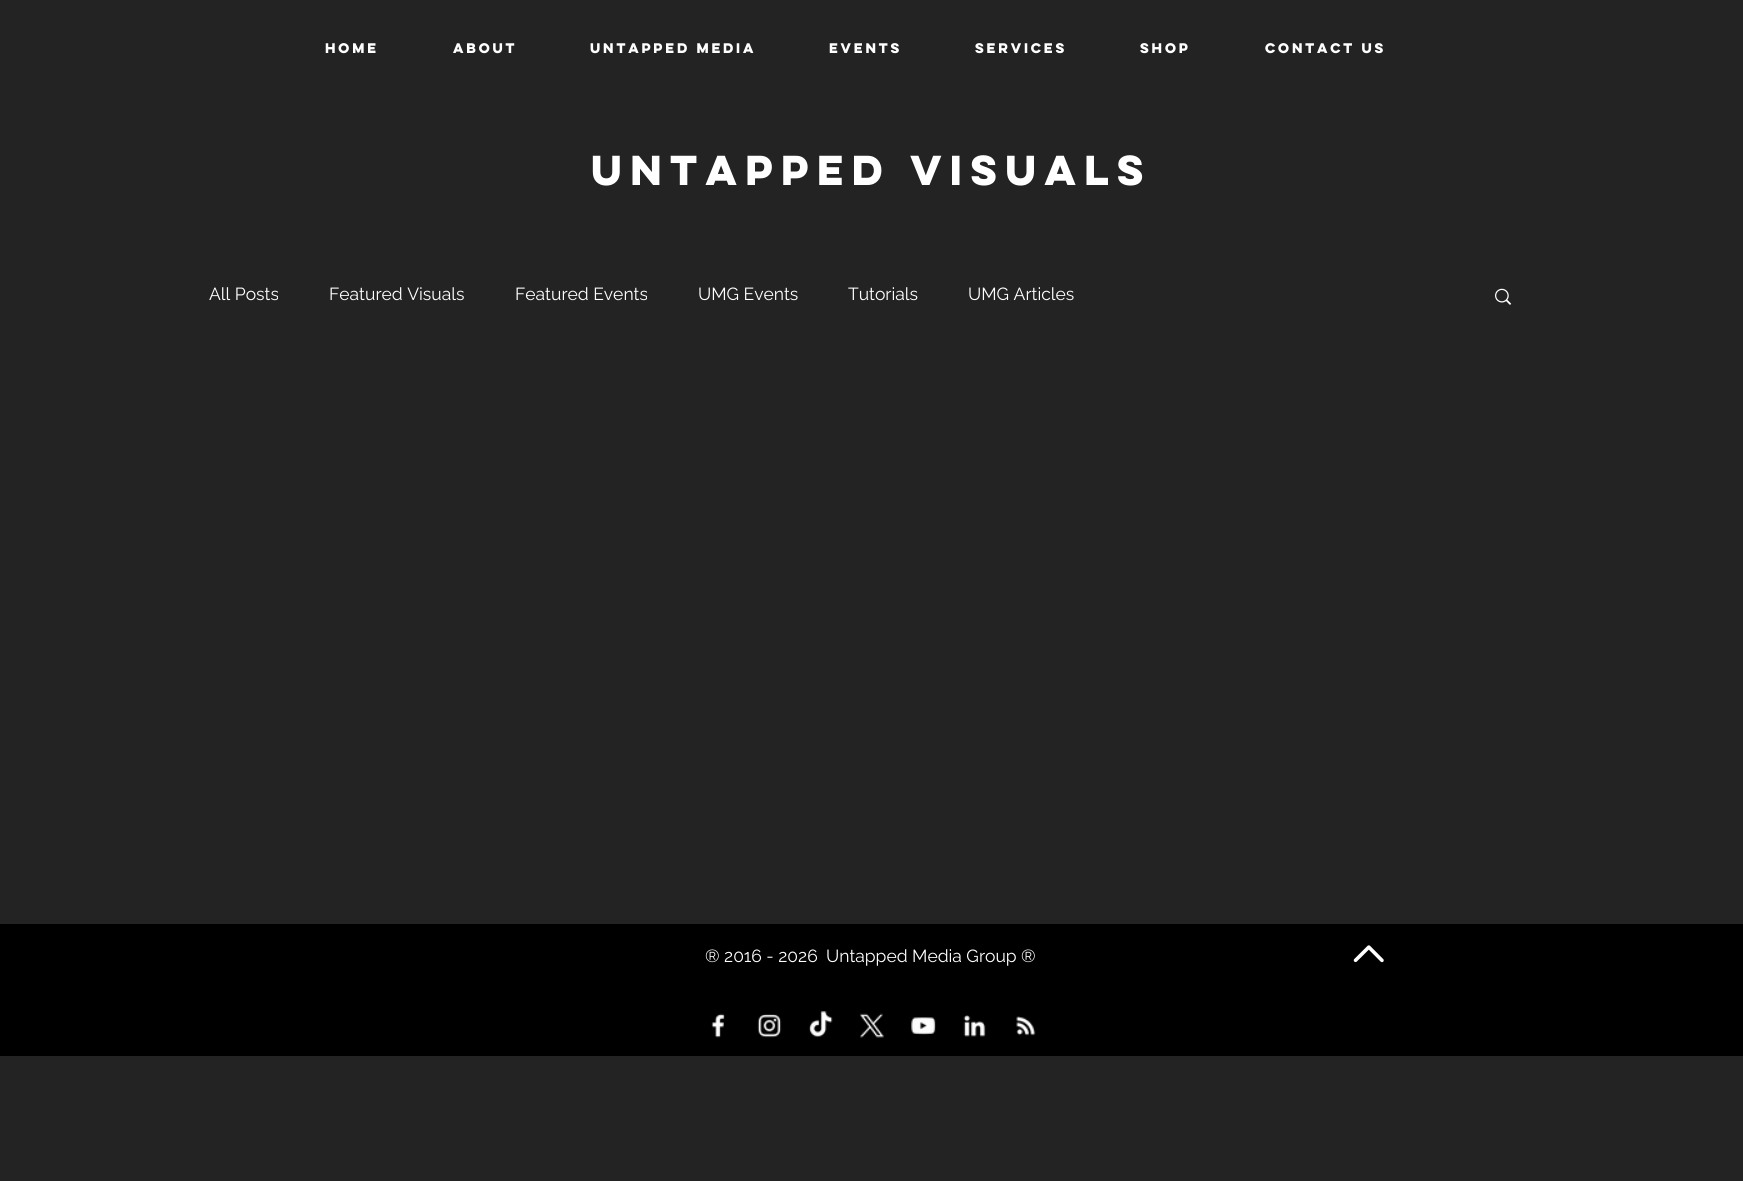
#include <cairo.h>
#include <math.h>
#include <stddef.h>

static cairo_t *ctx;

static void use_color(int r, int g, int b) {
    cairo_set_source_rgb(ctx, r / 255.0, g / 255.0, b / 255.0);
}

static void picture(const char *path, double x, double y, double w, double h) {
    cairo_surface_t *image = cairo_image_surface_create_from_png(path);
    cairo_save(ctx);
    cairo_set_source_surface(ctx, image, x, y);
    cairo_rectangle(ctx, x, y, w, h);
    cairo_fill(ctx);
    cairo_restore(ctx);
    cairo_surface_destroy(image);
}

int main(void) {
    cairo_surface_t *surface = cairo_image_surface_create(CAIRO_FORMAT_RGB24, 1743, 1181);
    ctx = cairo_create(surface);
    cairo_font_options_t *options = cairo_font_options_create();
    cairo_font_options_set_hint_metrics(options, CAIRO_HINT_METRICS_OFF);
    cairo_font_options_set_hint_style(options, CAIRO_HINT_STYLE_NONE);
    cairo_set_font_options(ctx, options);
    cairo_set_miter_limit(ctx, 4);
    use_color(36, 35, 35);
    cairo_paint(ctx);
    cairo_select_font_face(ctx, "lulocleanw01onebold", CAIRO_FONT_SLANT_NORMAL, CAIRO_FONT_WEIGHT_BOLD);
    cairo_set_font_size(ctx, 12.5);
    use_color(255, 255, 255);
    cairo_move_to(ctx, 325, 53);
    cairo_show_text(ctx, "Home");
    cairo_move_to(ctx, 453, 53);
    cairo_show_text(ctx, "About");
    cairo_move_to(ctx, 590, 53);
    cairo_show_text(ctx, "Untapped Media");
    cairo_move_to(ctx, 829, 53);
    cairo_show_text(ctx, "Events");
    cairo_move_to(ctx, 975, 53);
    cairo_show_text(ctx, "Services");
    cairo_move_to(ctx, 1140, 53);
    cairo_show_text(ctx, "Shop");
    cairo_move_to(ctx, 1265, 53);
    cairo_show_text(ctx, "Contact Us");
    cairo_set_font_size(ctx, 37.5);
    cairo_move_to(ctx, 591, 185);
    cairo_show_text(ctx, "untapped Visuals");
    cairo_select_font_face(ctx, "Raleway", CAIRO_FONT_SLANT_NORMAL, CAIRO_FONT_WEIGHT_NORMAL);
    cairo_set_font_size(ctx, 17.5);
    cairo_move_to(ctx, 209, 300);
    cairo_show_text(ctx, "All Posts");
    cairo_move_to(ctx, 329, 300);
    cairo_show_text(ctx, "Featured Visuals");
    cairo_move_to(ctx, 515, 300);
    cairo_show_text(ctx, "Featured Events");
    cairo_move_to(ctx, 698, 300);
    cairo_show_text(ctx, "UMG Events");
    cairo_move_to(ctx, 848, 300);
    cairo_show_text(ctx, "Tutorials");
    cairo_move_to(ctx, 968, 300);
    cairo_show_text(ctx, "UMG Articles");
    picture("img1.png", 1495, 288, 17, 17);
    use_color(0, 0, 0);
    cairo_rectangle(ctx, 0, 924, 1743, 132);
    cairo_fill(ctx);
    use_color(255, 255, 255);
    cairo_move_to(ctx, 705, 962);
    cairo_show_text(ctx, "® 2016 - 2026");
    cairo_move_to(ctx, 826, 962);
    cairo_show_text(ctx, "Untapped Media Group ®");
    picture("img2.png", 1353, 945, 31, 18);
    picture("img3.png", 711, 1013, 14, 25);
    picture("img4.png", 757, 1014, 25, 24);
    picture("img5.png", 809, 1011, 24, 27);
    picture("img6.png", 860, 1013, 24, 25);
    picture("img7.png", 911, 1017, 25, 18);
    picture("img8.png", 963, 1015, 23, 22);
    picture("img9.png", 1016, 1016, 20, 20);
    cairo_surface_write_to_png(surface, "result.png");
    cairo_font_options_destroy(options);
    cairo_destroy(ctx);
    cairo_surface_destroy(surface);
    return 0;
}
